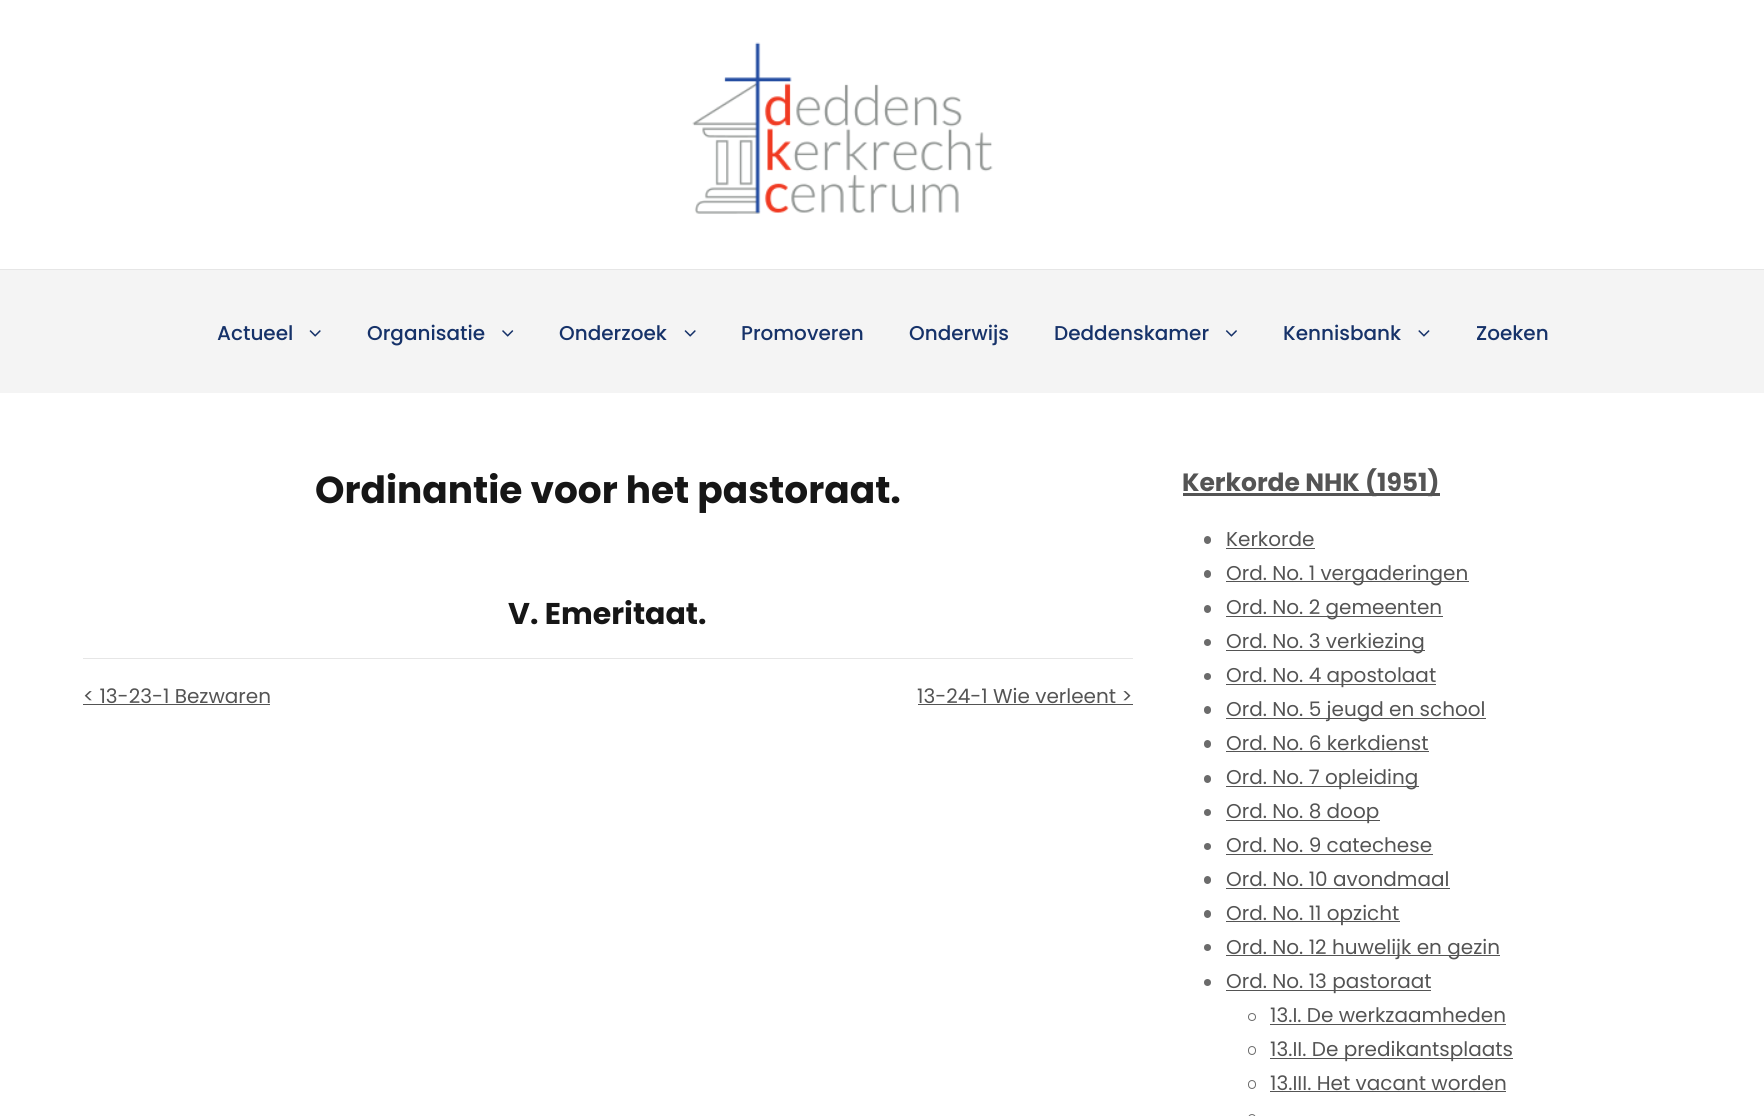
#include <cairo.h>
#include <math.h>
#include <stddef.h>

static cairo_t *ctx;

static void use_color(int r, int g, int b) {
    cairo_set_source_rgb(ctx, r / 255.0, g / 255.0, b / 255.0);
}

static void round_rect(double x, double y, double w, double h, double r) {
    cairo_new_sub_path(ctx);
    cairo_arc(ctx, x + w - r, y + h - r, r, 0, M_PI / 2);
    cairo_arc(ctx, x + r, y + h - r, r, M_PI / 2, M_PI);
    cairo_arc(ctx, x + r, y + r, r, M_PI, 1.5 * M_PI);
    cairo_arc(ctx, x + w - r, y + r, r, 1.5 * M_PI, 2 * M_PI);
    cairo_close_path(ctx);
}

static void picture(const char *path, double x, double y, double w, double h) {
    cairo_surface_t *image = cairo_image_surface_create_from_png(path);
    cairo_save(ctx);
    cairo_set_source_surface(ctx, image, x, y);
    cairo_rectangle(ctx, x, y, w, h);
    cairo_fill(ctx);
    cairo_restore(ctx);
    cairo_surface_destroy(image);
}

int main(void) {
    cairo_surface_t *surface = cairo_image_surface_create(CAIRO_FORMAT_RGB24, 1764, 1116);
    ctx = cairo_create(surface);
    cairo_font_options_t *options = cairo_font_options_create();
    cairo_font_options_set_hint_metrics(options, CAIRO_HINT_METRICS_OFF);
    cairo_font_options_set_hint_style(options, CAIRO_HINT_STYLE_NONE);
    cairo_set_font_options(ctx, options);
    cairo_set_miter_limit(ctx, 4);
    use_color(255, 255, 255);
    cairo_paint(ctx);
    picture("img1.png", 692, 42, 301, 172);
    use_color(230, 230, 230);
    cairo_rectangle(ctx, 0, 269, 1764, 1);
    cairo_fill(ctx);
    use_color(244, 244, 244);
    cairo_rectangle(ctx, 0, 270, 1764, 123);
    cairo_fill(ctx);
    cairo_select_font_face(ctx, "Poppins Medium", CAIRO_FONT_SLANT_NORMAL, CAIRO_FONT_WEIGHT_NORMAL);
    cairo_set_font_size(ctx, 20);
    use_color(22, 50, 105);
    cairo_move_to(ctx, 217, 340);
    cairo_show_text(ctx, "Actueel");
    picture("img2.png", 309, 330, 12, 7);
    cairo_move_to(ctx, 367, 340);
    cairo_show_text(ctx, "Organisatie");
    picture("img3.png", 502, 330, 12, 7);
    cairo_move_to(ctx, 559, 340);
    cairo_show_text(ctx, "Onderzoek");
    picture("img2.png", 684, 330, 12, 7);
    cairo_move_to(ctx, 741, 340);
    cairo_show_text(ctx, "Promoveren");
    cairo_move_to(ctx, 909, 340);
    cairo_show_text(ctx, "Onderwijs");
    cairo_move_to(ctx, 1054, 340);
    cairo_show_text(ctx, "Deddenskamer");
    picture("img4.png", 1225, 330, 12, 7);
    cairo_move_to(ctx, 1283, 340);
    cairo_show_text(ctx, "Kennisbank");
    picture("img5.png", 1418, 330, 12, 7);
    cairo_move_to(ctx, 1476, 340);
    cairo_show_text(ctx, "Zoeken");
    cairo_select_font_face(ctx, "Poppins", CAIRO_FONT_SLANT_NORMAL, CAIRO_FONT_WEIGHT_BOLD);
    cairo_set_font_size(ctx, 37.5);
    use_color(22, 22, 22);
    cairo_move_to(ctx, 315, 503);
    cairo_show_text(ctx, "Ordinantie voor het pastoraat.");
    cairo_set_font_size(ctx, 30);
    cairo_move_to(ctx, 508, 624);
    cairo_show_text(ctx, "V. Emeritaat.");
    use_color(230, 230, 230);
    cairo_rectangle(ctx, 83, 658, 1050, 1);
    cairo_fill(ctx);
    cairo_select_font_face(ctx, "Poppins", CAIRO_FONT_SLANT_NORMAL, CAIRO_FONT_WEIGHT_NORMAL);
    cairo_set_font_size(ctx, 20);
    use_color(84, 84, 84);
    cairo_move_to(ctx, 83, 703);
    cairo_show_text(ctx, "< 13-23-1 Bezwaren");
    cairo_rectangle(ctx, 83, 704, 187, 1);
    cairo_fill(ctx);
    cairo_move_to(ctx, 917, 703);
    cairo_show_text(ctx, "13-24-1 Wie verleent >");
    cairo_rectangle(ctx, 918, 704, 215, 1);
    cairo_fill(ctx);
    cairo_rectangle(ctx, 1183, 493, 257, 3);
    cairo_fill(ctx);
    cairo_select_font_face(ctx, "Poppins", CAIRO_FONT_SLANT_NORMAL, CAIRO_FONT_WEIGHT_BOLD);
    cairo_set_font_size(ctx, 25);
    cairo_move_to(ctx, 1182, 491);
    cairo_show_text(ctx, "Kerkorde NHK (1951)");
    use_color(107, 107, 107);
    round_rect(1204, 536, 7, 8, 3.5);
    cairo_fill(ctx);
    cairo_select_font_face(ctx, "Poppins", CAIRO_FONT_SLANT_NORMAL, CAIRO_FONT_WEIGHT_NORMAL);
    cairo_set_font_size(ctx, 20);
    use_color(84, 84, 84);
    cairo_move_to(ctx, 1226, 546);
    cairo_show_text(ctx, "Kerkorde");
    cairo_rectangle(ctx, 1226, 548, 89, 1);
    cairo_fill(ctx);
    use_color(107, 107, 107);
    round_rect(1204, 570, 7, 8, 3.5);
    cairo_fill(ctx);
    use_color(84, 84, 84);
    cairo_rectangle(ctx, 1226, 581, 243, 1);
    cairo_fill(ctx);
    cairo_move_to(ctx, 1226, 580);
    cairo_show_text(ctx, "Ord. No. 1 vergaderingen");
    use_color(107, 107, 107);
    round_rect(1204, 605, 7, 8, 3.5);
    cairo_fill(ctx);
    use_color(84, 84, 84);
    cairo_rectangle(ctx, 1226, 616, 217, 1);
    cairo_fill(ctx);
    cairo_move_to(ctx, 1226, 614);
    cairo_show_text(ctx, "Ord. No. 2 gemeenten");
    use_color(107, 107, 107);
    cairo_new_path(ctx);
    cairo_arc(ctx, 1207.5, 642.5, 3.5, 0, 2 * M_PI);
    cairo_fill(ctx);
    use_color(84, 84, 84);
    cairo_rectangle(ctx, 1226, 650, 199, 1);
    cairo_fill(ctx);
    cairo_move_to(ctx, 1226, 648);
    cairo_show_text(ctx, "Ord. No. 3 verkiezing");
    use_color(107, 107, 107);
    cairo_new_path(ctx);
    cairo_arc(ctx, 1207.5, 676.5, 3.5, 0, 2 * M_PI);
    cairo_fill(ctx);
    use_color(84, 84, 84);
    cairo_rectangle(ctx, 1226, 684, 210, 1);
    cairo_fill(ctx);
    cairo_move_to(ctx, 1226, 682);
    cairo_show_text(ctx, "Ord. No. 4 apostolaat");
    use_color(107, 107, 107);
    round_rect(1204, 706, 7, 8, 3.5);
    cairo_fill(ctx);
    use_color(84, 84, 84);
    cairo_rectangle(ctx, 1226, 718, 260, 1);
    cairo_fill(ctx);
    cairo_move_to(ctx, 1226, 716);
    cairo_show_text(ctx, "Ord. No. 5 jeugd en school");
    use_color(107, 107, 107);
    round_rect(1204, 740, 7, 8, 3.5);
    cairo_fill(ctx);
    use_color(84, 84, 84);
    cairo_move_to(ctx, 1226, 750);
    cairo_show_text(ctx, "Ord. No. 6 kerkdienst");
    cairo_rectangle(ctx, 1226, 751, 203, 1);
    cairo_fill(ctx);
    use_color(107, 107, 107);
    round_rect(1204, 775, 7, 8, 3.5);
    cairo_fill(ctx);
    use_color(84, 84, 84);
    cairo_rectangle(ctx, 1226, 786, 193, 1);
    cairo_fill(ctx);
    cairo_move_to(ctx, 1226, 784);
    cairo_show_text(ctx, "Ord. No. 7 opleiding");
    use_color(107, 107, 107);
    cairo_new_path(ctx);
    cairo_arc(ctx, 1207.5, 812.5, 3.5, 0, 2 * M_PI);
    cairo_fill(ctx);
    use_color(84, 84, 84);
    cairo_rectangle(ctx, 1226, 820, 154, 1);
    cairo_fill(ctx);
    cairo_move_to(ctx, 1226, 818);
    cairo_show_text(ctx, "Ord. No. 8 doop");
    use_color(107, 107, 107);
    cairo_new_path(ctx);
    cairo_arc(ctx, 1207.5, 846.5, 3.5, 0, 2 * M_PI);
    cairo_fill(ctx);
    use_color(84, 84, 84);
    cairo_move_to(ctx, 1226, 852);
    cairo_show_text(ctx, "Ord. No. 9 catechese");
    cairo_rectangle(ctx, 1226, 854, 207, 1);
    cairo_fill(ctx);
    use_color(107, 107, 107);
    round_rect(1204, 876, 7, 8, 3.5);
    cairo_fill(ctx);
    use_color(84, 84, 84);
    cairo_move_to(ctx, 1226, 886);
    cairo_show_text(ctx, "Ord. No. 10 avondmaal");
    cairo_rectangle(ctx, 1226, 888, 224, 1);
    cairo_fill(ctx);
    use_color(107, 107, 107);
    round_rect(1204, 910, 7, 8, 3.5);
    cairo_fill(ctx);
    use_color(84, 84, 84);
    cairo_rectangle(ctx, 1226, 921, 174, 1);
    cairo_fill(ctx);
    cairo_move_to(ctx, 1226, 920);
    cairo_show_text(ctx, "Ord. No. 11 opzicht");
    use_color(107, 107, 107);
    cairo_new_path(ctx);
    cairo_arc(ctx, 1207.5, 947.5, 3.5, 0, 2 * M_PI);
    cairo_fill(ctx);
    use_color(84, 84, 84);
    cairo_rectangle(ctx, 1226, 955, 274, 1);
    cairo_fill(ctx);
    cairo_move_to(ctx, 1226, 954);
    cairo_show_text(ctx, "Ord. No. 12 huwelijk en gezin");
    use_color(107, 107, 107);
    cairo_new_path(ctx);
    cairo_arc(ctx, 1207.5, 982.5, 3.5, 0, 2 * M_PI);
    cairo_fill(ctx);
    use_color(84, 84, 84);
    cairo_rectangle(ctx, 1226, 990, 205, 1);
    cairo_fill(ctx);
    cairo_move_to(ctx, 1226, 988);
    cairo_show_text(ctx, "Ord. No. 13 pastoraat");
    cairo_new_path(ctx);
    cairo_arc(ctx, 1252, 1017, 3.5, 0, 2 * M_PI);
    use_color(107, 107, 107);
    cairo_set_line_width(ctx, 1);
    cairo_stroke(ctx);
    use_color(84, 84, 84);
    cairo_move_to(ctx, 1270, 1022);
    cairo_show_text(ctx, "13.I. De werkzaamheden");
    cairo_rectangle(ctx, 1270, 1024, 236, 1);
    cairo_fill(ctx);
    round_rect(1248.5, 1046.5, 7, 8, 3.5);
    use_color(107, 107, 107);
    cairo_stroke(ctx);
    use_color(84, 84, 84);
    cairo_rectangle(ctx, 1270, 1058, 243, 1);
    cairo_fill(ctx);
    cairo_move_to(ctx, 1270, 1056);
    cairo_show_text(ctx, "13.II. De predikantsplaats");
    round_rect(1248.5, 1080.5, 7, 8, 3.5);
    use_color(107, 107, 107);
    cairo_stroke(ctx);
    use_color(84, 84, 84);
    cairo_move_to(ctx, 1270, 1090);
    cairo_show_text(ctx, "13.III. Het vacant worden");
    cairo_rectangle(ctx, 1270, 1091, 236, 1);
    cairo_fill(ctx);
    round_rect(1248.5, 1114.5, 7, 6, 3.5);
    use_color(107, 107, 107);
    cairo_stroke(ctx);
    cairo_surface_write_to_png(surface, "result.png");
    cairo_font_options_destroy(options);
    cairo_destroy(ctx);
    cairo_surface_destroy(surface);
    return 0;
}
